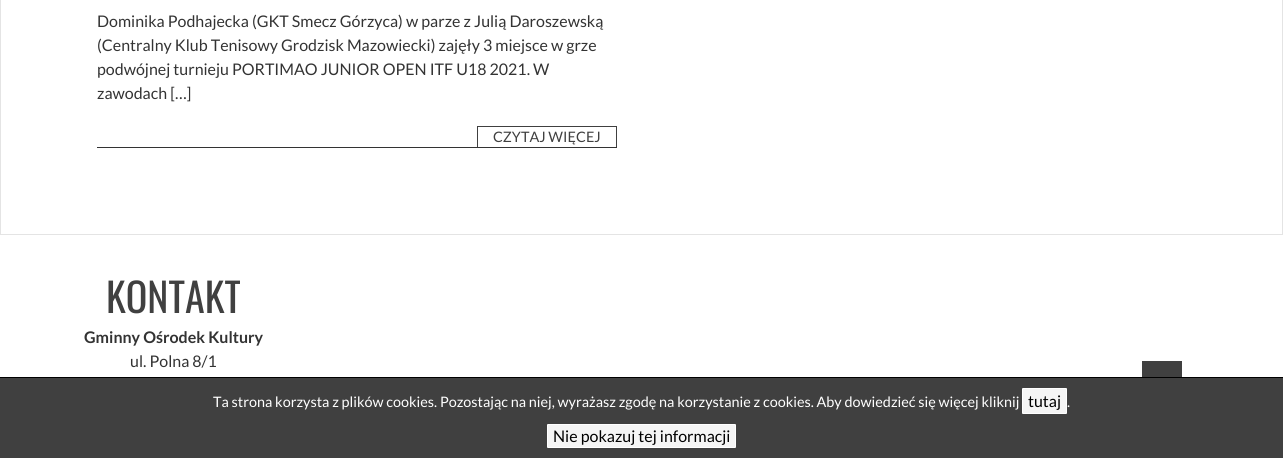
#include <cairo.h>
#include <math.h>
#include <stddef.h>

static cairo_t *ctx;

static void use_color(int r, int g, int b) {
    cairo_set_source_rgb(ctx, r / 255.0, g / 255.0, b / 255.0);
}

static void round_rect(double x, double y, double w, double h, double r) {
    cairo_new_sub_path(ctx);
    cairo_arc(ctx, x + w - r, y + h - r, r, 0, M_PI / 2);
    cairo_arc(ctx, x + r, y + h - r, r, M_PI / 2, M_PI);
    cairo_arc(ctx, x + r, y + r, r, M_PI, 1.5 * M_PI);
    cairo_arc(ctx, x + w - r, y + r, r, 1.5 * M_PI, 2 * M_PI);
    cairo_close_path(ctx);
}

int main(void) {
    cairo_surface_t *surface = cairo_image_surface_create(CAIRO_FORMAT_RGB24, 1283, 458);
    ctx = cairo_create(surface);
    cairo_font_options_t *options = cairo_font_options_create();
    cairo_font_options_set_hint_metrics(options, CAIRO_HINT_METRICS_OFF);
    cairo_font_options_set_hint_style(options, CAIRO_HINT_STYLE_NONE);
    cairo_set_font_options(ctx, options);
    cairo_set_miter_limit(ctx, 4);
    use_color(255, 255, 255);
    cairo_paint(ctx);
    cairo_rectangle(ctx, 0.5, -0.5, 1282, 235);
    use_color(228, 228, 228);
    cairo_set_line_width(ctx, 1);
    cairo_stroke(ctx);
    use_color(51, 51, 51);
    cairo_rectangle(ctx, 97, 147, 520, 1);
    cairo_fill(ctx);
    cairo_select_font_face(ctx, "Lato", CAIRO_FONT_SLANT_NORMAL, CAIRO_FONT_WEIGHT_NORMAL);
    cairo_set_font_size(ctx, 16);
    cairo_move_to(ctx, 97, 27);
    cairo_show_text(ctx, "Dominika Podhajecka (GKT Smecz Górzyca) w parze z Julią Daroszewską");
    cairo_move_to(ctx, 97, 51);
    cairo_show_text(ctx, "(Centralny Klub Tenisowy Grodzisk Mazowiecki) zajęły 3 miejsce w grze");
    cairo_move_to(ctx, 97, 75);
    cairo_show_text(ctx, "podwójnej turnieju PORTIMAO JUNIOR OPEN ITF U18 2021. W");
    cairo_move_to(ctx, 97, 99);
    cairo_show_text(ctx, "zawodach […]");
    use_color(64, 64, 64);
    cairo_rectangle(ctx, 477, 126, 140, 1);
    cairo_fill(ctx);
    cairo_rectangle(ctx, 616, 126, 1, 21);
    cairo_fill(ctx);
    cairo_rectangle(ctx, 477, 126, 1, 21);
    cairo_fill(ctx);
    cairo_set_font_size(ctx, 14.4);
    cairo_move_to(ctx, 493, 142);
    cairo_show_text(ctx, "CZYTAJ WIĘCEJ");
    cairo_select_font_face(ctx, "Oswald", CAIRO_FONT_SLANT_NORMAL, CAIRO_FONT_WEIGHT_NORMAL);
    cairo_set_font_size(ctx, 40);
    cairo_move_to(ctx, 106, 313);
    cairo_show_text(ctx, "KONTAKT");
    cairo_select_font_face(ctx, "Lato", CAIRO_FONT_SLANT_NORMAL, CAIRO_FONT_WEIGHT_BOLD);
    cairo_set_font_size(ctx, 16);
    use_color(51, 51, 51);
    cairo_move_to(ctx, 84, 343);
    cairo_show_text(ctx, "Gminny Ośrodek Kultury");
    cairo_select_font_face(ctx, "Lato", CAIRO_FONT_SLANT_NORMAL, CAIRO_FONT_WEIGHT_NORMAL);
    cairo_move_to(ctx, 130, 367);
    cairo_show_text(ctx, "ul. Polna 8/1");
    use_color(64, 64, 64);
    cairo_rectangle(ctx, 1142, 361, 40, 16);
    cairo_fill(ctx);
    cairo_rectangle(ctx, 0, 378, 1283, 80);
    cairo_fill(ctx);
    use_color(0, 0, 0);
    cairo_rectangle(ctx, 0, 377, 1283, 1);
    cairo_fill(ctx);
    cairo_set_font_size(ctx, 14.4);
    use_color(255, 255, 255);
    cairo_move_to(ctx, 213, 407);
    cairo_show_text(ctx, "Ta strona korzysta z plików cookies. Pozostając na niej, wyrażasz zgodę na korzystanie z cookies. Aby dowiedzieć się więcej kliknij");
    use_color(245, 245, 245);
    round_rect(1022.5, 388.5, 44, 25, 0.5);
    cairo_fill_preserve(ctx);
    use_color(255, 255, 255);
    cairo_stroke(ctx);
    cairo_set_font_size(ctx, 16);
    use_color(0, 0, 0);
    cairo_move_to(ctx, 1028, 407);
    cairo_show_text(ctx, "tutaj");
    cairo_set_font_size(ctx, 14.4);
    use_color(255, 255, 255);
    cairo_move_to(ctx, 1067, 407);
    cairo_show_text(ctx, ".");
    use_color(245, 245, 245);
    round_rect(547.5, 424.5, 188, 23, 0.5);
    cairo_fill_preserve(ctx);
    use_color(255, 255, 255);
    cairo_stroke(ctx);
    cairo_set_font_size(ctx, 16);
    use_color(0, 0, 0);
    cairo_move_to(ctx, 553, 442);
    cairo_show_text(ctx, "Nie pokazuj tej informacji");
    cairo_surface_write_to_png(surface, "result.png");
    cairo_font_options_destroy(options);
    cairo_destroy(ctx);
    cairo_surface_destroy(surface);
    return 0;
}
